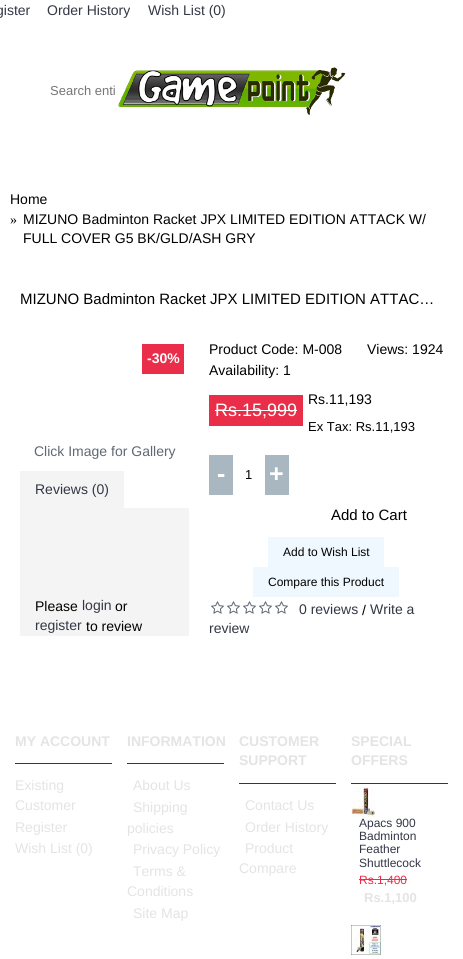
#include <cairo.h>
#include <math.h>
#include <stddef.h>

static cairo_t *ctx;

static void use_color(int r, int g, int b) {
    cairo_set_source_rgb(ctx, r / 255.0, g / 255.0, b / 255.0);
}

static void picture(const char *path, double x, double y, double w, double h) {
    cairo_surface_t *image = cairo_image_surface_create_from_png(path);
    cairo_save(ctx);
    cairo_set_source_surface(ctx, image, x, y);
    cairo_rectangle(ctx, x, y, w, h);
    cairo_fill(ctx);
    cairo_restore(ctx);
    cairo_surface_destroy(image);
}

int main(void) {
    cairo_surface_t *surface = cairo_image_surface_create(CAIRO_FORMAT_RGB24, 463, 959);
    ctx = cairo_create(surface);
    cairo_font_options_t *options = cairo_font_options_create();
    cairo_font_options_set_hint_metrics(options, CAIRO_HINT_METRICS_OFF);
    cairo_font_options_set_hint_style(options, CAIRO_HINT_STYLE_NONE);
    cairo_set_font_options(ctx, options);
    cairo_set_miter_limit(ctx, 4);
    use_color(255, 255, 255);
    cairo_paint(ctx);
    cairo_select_font_face(ctx, "Liberation Sans", CAIRO_FONT_SLANT_NORMAL, CAIRO_FONT_WEIGHT_NORMAL);
    cairo_set_font_size(ctx, 14);
    use_color(51, 55, 69);
    cairo_move_to(ctx, -4, 15);
    cairo_show_text(ctx, "gister");
    cairo_move_to(ctx, 47, 15);
    cairo_show_text(ctx, "Order History");
    cairo_move_to(ctx, 148, 15);
    cairo_show_text(ctx, "Wish List (0)");
    cairo_set_font_size(ctx, 13);
    use_color(117, 117, 117);
    cairo_move_to(ctx, 50, 95);
    cairo_show_text(ctx, "Search enti");
    picture("img1.png", 118, 67, 228, 48);
    cairo_set_font_size(ctx, 14);
    use_color(0, 0, 0);
    cairo_move_to(ctx, 10, 204);
    cairo_show_text(ctx, "Home");
    cairo_select_font_face(ctx, "Liberation Serif", CAIRO_FONT_SLANT_NORMAL, CAIRO_FONT_WEIGHT_NORMAL);
    cairo_move_to(ctx, 10, 224);
    cairo_show_text(ctx, "»");
    cairo_select_font_face(ctx, "Liberation Sans", CAIRO_FONT_SLANT_NORMAL, CAIRO_FONT_WEIGHT_NORMAL);
    cairo_move_to(ctx, 23, 224);
    cairo_show_text(ctx, "MIZUNO Badminton Racket JPX LIMITED EDITION ATTACK W/");
    cairo_move_to(ctx, 23, 243);
    cairo_show_text(ctx, "FULL COVER G5 BK/GLD/ASH GRY");
    cairo_set_font_size(ctx, 15);
    cairo_move_to(ctx, 20, 304);
    cairo_show_text(ctx, "MIZUNO Badminton Racket JPX LIMITED EDITION ATTAC…");
    use_color(234, 46, 73);
    cairo_rectangle(ctx, 142, 344, 42, 30);
    cairo_fill(ctx);
    cairo_select_font_face(ctx, "Liberation Sans", CAIRO_FONT_SLANT_NORMAL, CAIRO_FONT_WEIGHT_BOLD);
    cairo_set_font_size(ctx, 14);
    use_color(255, 255, 255);
    cairo_move_to(ctx, 147, 363);
    cairo_show_text(ctx, "-30%");
    cairo_select_font_face(ctx, "Liberation Sans", CAIRO_FONT_SLANT_NORMAL, CAIRO_FONT_WEIGHT_NORMAL);
    use_color(95, 104, 116);
    cairo_move_to(ctx, 34, 456);
    cairo_show_text(ctx, "Click Image for Gallery");
    use_color(244, 244, 244);
    cairo_rectangle(ctx, 20, 471, 104, 37);
    cairo_fill(ctx);
    use_color(51, 55, 69);
    cairo_move_to(ctx, 35, 494);
    cairo_show_text(ctx, "Reviews (0)");
    use_color(244, 244, 244);
    cairo_rectangle(ctx, 20, 508, 169, 128);
    cairo_fill(ctx);
    use_color(0, 0, 0);
    cairo_move_to(ctx, 35, 611);
    cairo_show_text(ctx, "Please");
    use_color(51, 55, 69);
    cairo_move_to(ctx, 82, 610);
    cairo_show_text(ctx, "login");
    use_color(0, 0, 0);
    cairo_move_to(ctx, 115, 611);
    cairo_show_text(ctx, "or");
    use_color(51, 55, 69);
    cairo_move_to(ctx, 35, 630);
    cairo_show_text(ctx, "register");
    use_color(0, 0, 0);
    cairo_move_to(ctx, 86, 631);
    cairo_show_text(ctx, "to review");
    cairo_move_to(ctx, 209, 354);
    cairo_show_text(ctx, "Product Code: M-008");
    cairo_move_to(ctx, 367, 354);
    cairo_show_text(ctx, "Views: 1924");
    cairo_move_to(ctx, 209, 375);
    cairo_show_text(ctx, "Availability: 1");
    cairo_move_to(ctx, 308, 404);
    cairo_show_text(ctx, "Rs.11,193");
    use_color(234, 46, 73);
    cairo_rectangle(ctx, 209, 395, 94, 31);
    cairo_fill(ctx);
    cairo_set_font_size(ctx, 18);
    use_color(255, 255, 255);
    cairo_move_to(ctx, 215, 416);
    cairo_show_text(ctx, "Rs.15,999");
    cairo_rectangle(ctx, 215, 410, 82, 1);
    cairo_fill(ctx);
    cairo_set_font_size(ctx, 13);
    use_color(0, 0, 0);
    cairo_move_to(ctx, 308, 431);
    cairo_show_text(ctx, "Ex Tax: Rs.11,193");
    use_color(169, 184, 192);
    cairo_rectangle(ctx, 209, 455, 24, 40);
    cairo_fill(ctx);
    cairo_select_font_face(ctx, "Liberation Sans", CAIRO_FONT_SLANT_NORMAL, CAIRO_FONT_WEIGHT_BOLD);
    cairo_set_font_size(ctx, 25);
    use_color(255, 255, 255);
    cairo_move_to(ctx, 217, 482);
    cairo_show_text(ctx, "-");
    cairo_select_font_face(ctx, "Liberation Sans", CAIRO_FONT_SLANT_NORMAL, CAIRO_FONT_WEIGHT_NORMAL);
    cairo_set_font_size(ctx, 13);
    use_color(0, 0, 0);
    cairo_move_to(ctx, 245, 479);
    cairo_show_text(ctx, "1");
    use_color(169, 184, 192);
    cairo_rectangle(ctx, 265, 455, 24, 40);
    cairo_fill(ctx);
    cairo_select_font_face(ctx, "Liberation Sans", CAIRO_FONT_SLANT_NORMAL, CAIRO_FONT_WEIGHT_BOLD);
    cairo_set_font_size(ctx, 25);
    use_color(255, 255, 255);
    cairo_move_to(ctx, 269, 482);
    cairo_show_text(ctx, "+");
    cairo_select_font_face(ctx, "Liberation Sans", CAIRO_FONT_SLANT_NORMAL, CAIRO_FONT_WEIGHT_NORMAL);
    cairo_set_font_size(ctx, 15);
    use_color(0, 0, 0);
    cairo_move_to(ctx, 331, 520);
    cairo_show_text(ctx, "Add to Cart");
    use_color(240, 248, 255);
    cairo_rectangle(ctx, 268, 537, 116, 30);
    cairo_fill(ctx);
    cairo_set_font_size(ctx, 12);
    use_color(0, 0, 0);
    cairo_move_to(ctx, 283, 556);
    cairo_show_text(ctx, "Add to Wish List");
    use_color(240, 248, 255);
    cairo_rectangle(ctx, 253, 567, 146, 30);
    cairo_fill(ctx);
    use_color(0, 0, 0);
    cairo_move_to(ctx, 268, 586);
    cairo_show_text(ctx, "Compare this Product");
    picture("img2.png", 211, 601, 13, 13);
    picture("img2.png", 227, 601, 13, 13);
    picture("img2.png", 243, 601, 13, 13);
    picture("img2.png", 259, 601, 13, 13);
    picture("img2.png", 275, 601, 13, 13);
    cairo_set_font_size(ctx, 14);
    use_color(51, 55, 69);
    cairo_move_to(ctx, 299, 614);
    cairo_show_text(ctx, "0 reviews");
    use_color(0, 0, 0);
    cairo_move_to(ctx, 362, 615);
    cairo_show_text(ctx, "/");
    use_color(51, 55, 69);
    cairo_move_to(ctx, 370, 614);
    cairo_show_text(ctx, "Write a");
    cairo_move_to(ctx, 209, 633);
    cairo_show_text(ctx, "review");
    cairo_rectangle(ctx, 15, 763, 97, 1);
    cairo_fill(ctx);
    cairo_select_font_face(ctx, "Liberation Sans", CAIRO_FONT_SLANT_NORMAL, CAIRO_FONT_WEIGHT_BOLD);
    use_color(228, 228, 228);
    cairo_move_to(ctx, 15, 746);
    cairo_show_text(ctx, "MY ACCOUNT");
    cairo_select_font_face(ctx, "Liberation Sans", CAIRO_FONT_SLANT_NORMAL, CAIRO_FONT_WEIGHT_NORMAL);
    cairo_move_to(ctx, 15, 790);
    cairo_show_text(ctx, "Existing");
    cairo_move_to(ctx, 15, 810);
    cairo_show_text(ctx, "Customer");
    cairo_move_to(ctx, 15, 832);
    cairo_show_text(ctx, "Register");
    cairo_move_to(ctx, 15, 853);
    cairo_show_text(ctx, "Wish List (0)");
    use_color(51, 55, 69);
    cairo_rectangle(ctx, 127, 763, 97, 1);
    cairo_fill(ctx);
    cairo_select_font_face(ctx, "Liberation Sans", CAIRO_FONT_SLANT_NORMAL, CAIRO_FONT_WEIGHT_BOLD);
    use_color(228, 228, 228);
    cairo_move_to(ctx, 127, 746);
    cairo_show_text(ctx, "INFORMATION");
    cairo_select_font_face(ctx, "Liberation Sans", CAIRO_FONT_SLANT_NORMAL, CAIRO_FONT_WEIGHT_NORMAL);
    cairo_move_to(ctx, 133, 790);
    cairo_show_text(ctx, "About Us");
    cairo_move_to(ctx, 133, 812);
    cairo_show_text(ctx, "Shipping");
    cairo_move_to(ctx, 127, 833);
    cairo_show_text(ctx, "policies");
    cairo_move_to(ctx, 133, 854);
    cairo_show_text(ctx, "Privacy Policy");
    cairo_move_to(ctx, 133, 876);
    cairo_show_text(ctx, "Terms &");
    cairo_move_to(ctx, 127, 896);
    cairo_show_text(ctx, "Conditions");
    cairo_move_to(ctx, 133, 918);
    cairo_show_text(ctx, "Site Map");
    use_color(51, 55, 69);
    cairo_rectangle(ctx, 239, 783, 97, 1);
    cairo_fill(ctx);
    cairo_select_font_face(ctx, "Liberation Sans", CAIRO_FONT_SLANT_NORMAL, CAIRO_FONT_WEIGHT_BOLD);
    use_color(228, 228, 228);
    cairo_move_to(ctx, 239, 746);
    cairo_show_text(ctx, "CUSTOMER");
    cairo_move_to(ctx, 239, 765);
    cairo_show_text(ctx, "SUPPORT");
    cairo_select_font_face(ctx, "Liberation Sans", CAIRO_FONT_SLANT_NORMAL, CAIRO_FONT_WEIGHT_NORMAL);
    cairo_move_to(ctx, 245, 810);
    cairo_show_text(ctx, "Contact Us");
    cairo_move_to(ctx, 245, 832);
    cairo_show_text(ctx, "Order History");
    cairo_move_to(ctx, 245, 853);
    cairo_show_text(ctx, "Product");
    cairo_move_to(ctx, 239, 873);
    cairo_show_text(ctx, "Compare");
    use_color(51, 55, 69);
    cairo_rectangle(ctx, 351, 783, 97, 1);
    cairo_fill(ctx);
    cairo_select_font_face(ctx, "Liberation Sans", CAIRO_FONT_SLANT_NORMAL, CAIRO_FONT_WEIGHT_BOLD);
    use_color(228, 228, 228);
    cairo_move_to(ctx, 351, 746);
    cairo_show_text(ctx, "SPECIAL");
    cairo_move_to(ctx, 351, 765);
    cairo_show_text(ctx, "OFFERS");
    picture("img3.png", 351, 787, 26, 30);
    cairo_select_font_face(ctx, "Liberation Sans", CAIRO_FONT_SLANT_NORMAL, CAIRO_FONT_WEIGHT_NORMAL);
    cairo_set_font_size(ctx, 12);
    use_color(51, 55, 69);
    cairo_move_to(ctx, 359, 827);
    cairo_show_text(ctx, "Apacs 900");
    cairo_move_to(ctx, 359, 840);
    cairo_show_text(ctx, "Badminton");
    cairo_move_to(ctx, 359, 853);
    cairo_show_text(ctx, "Feather");
    cairo_move_to(ctx, 359, 867);
    cairo_show_text(ctx, "Shuttlecock");
    use_color(234, 46, 73);
    cairo_move_to(ctx, 359, 884);
    cairo_show_text(ctx, "Rs.1,400");
    cairo_rectangle(ctx, 359, 879, 48, 1);
    cairo_fill(ctx);
    cairo_select_font_face(ctx, "Liberation Sans", CAIRO_FONT_SLANT_NORMAL, CAIRO_FONT_WEIGHT_BOLD);
    cairo_set_font_size(ctx, 13);
    use_color(228, 228, 228);
    cairo_move_to(ctx, 364, 902);
    cairo_show_text(ctx, "Rs.1,100");
    picture("img4.png", 351, 925, 30, 30);
    cairo_surface_write_to_png(surface, "result.png");
    cairo_font_options_destroy(options);
    cairo_destroy(ctx);
    cairo_surface_destroy(surface);
    return 0;
}
